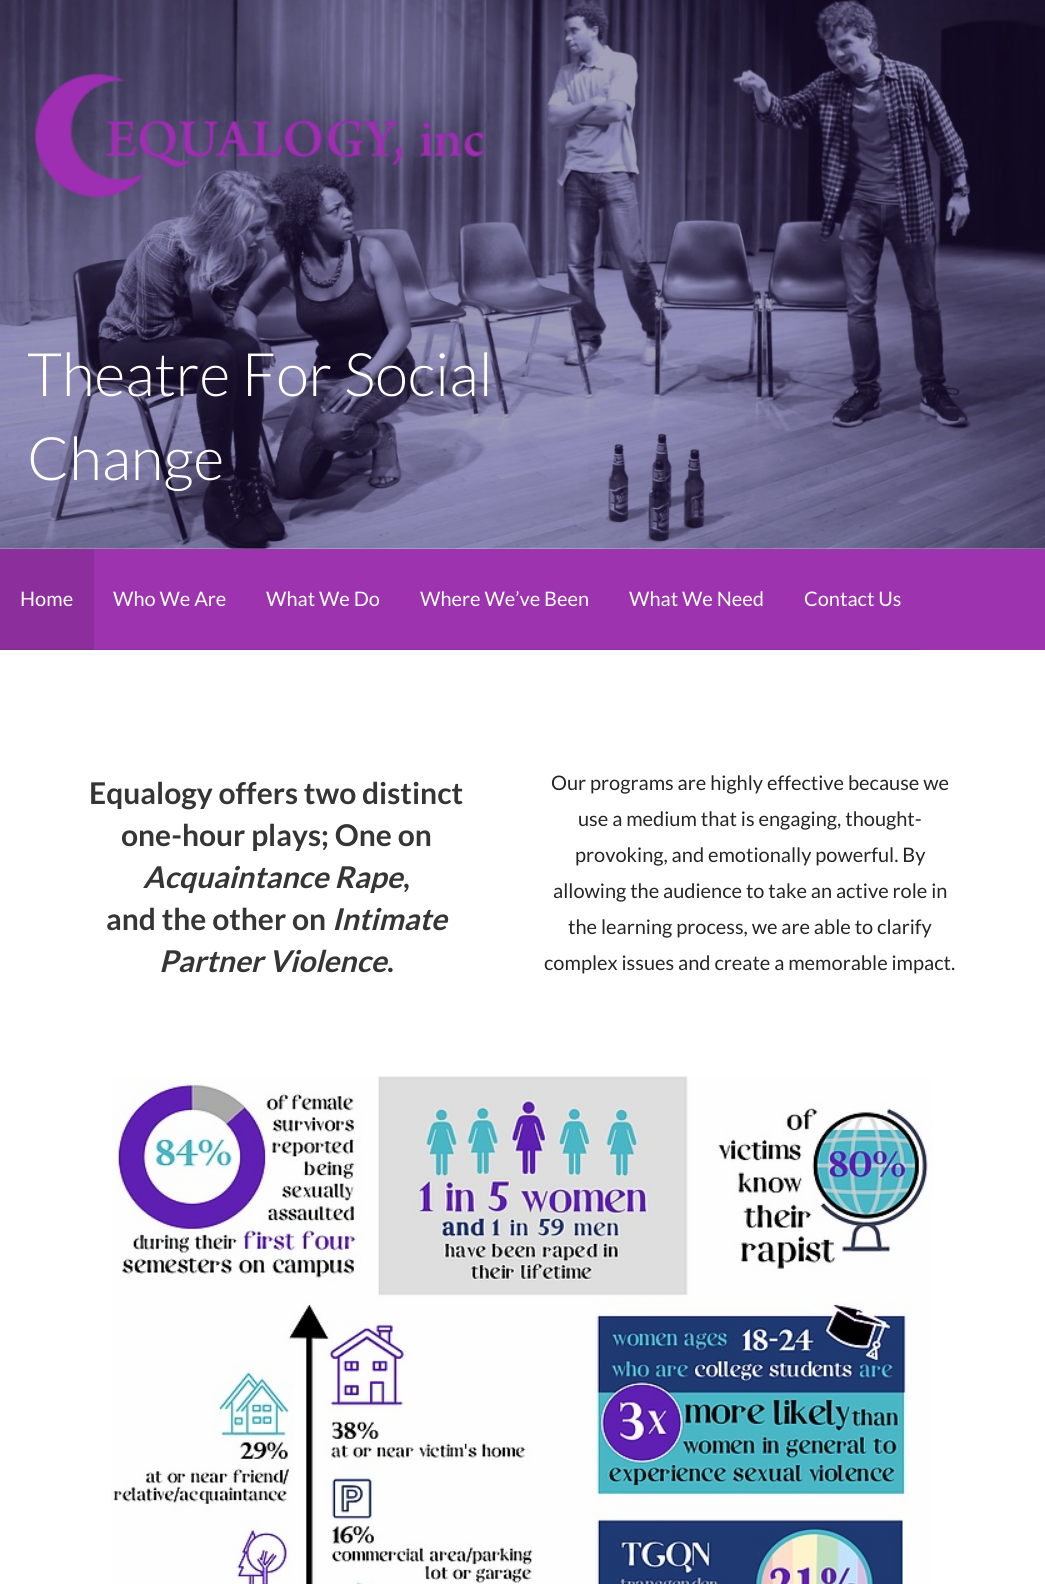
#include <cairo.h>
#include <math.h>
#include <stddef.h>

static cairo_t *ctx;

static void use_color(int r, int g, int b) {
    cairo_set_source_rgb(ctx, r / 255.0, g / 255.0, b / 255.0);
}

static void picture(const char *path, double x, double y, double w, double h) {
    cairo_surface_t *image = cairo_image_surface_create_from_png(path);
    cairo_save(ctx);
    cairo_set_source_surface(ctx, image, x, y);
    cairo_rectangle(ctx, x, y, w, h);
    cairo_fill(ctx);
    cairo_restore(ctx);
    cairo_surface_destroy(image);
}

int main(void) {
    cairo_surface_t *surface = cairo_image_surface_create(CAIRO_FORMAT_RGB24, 1045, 1584);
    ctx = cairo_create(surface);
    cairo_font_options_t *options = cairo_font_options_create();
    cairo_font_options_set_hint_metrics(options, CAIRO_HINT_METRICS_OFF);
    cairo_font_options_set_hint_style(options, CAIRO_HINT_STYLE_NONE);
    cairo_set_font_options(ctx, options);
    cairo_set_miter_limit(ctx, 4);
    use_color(255, 255, 255);
    cairo_paint(ctx);
    picture("img1.png", 0, 0, 1045, 549);
    picture("img2.png", 35, 73, 450, 125);
    cairo_select_font_face(ctx, "Lato Light", CAIRO_FONT_SLANT_NORMAL, CAIRO_FONT_WEIGHT_NORMAL);
    cairo_set_font_size(ctx, 60);
    use_color(255, 255, 255);
    cairo_move_to(ctx, 27, 396);
    cairo_show_text(ctx, "Theatre For Social");
    cairo_move_to(ctx, 27, 480);
    cairo_show_text(ctx, "Change");
    use_color(157, 51, 174);
    cairo_rectangle(ctx, 94, 549, 951, 101);
    cairo_fill(ctx);
    use_color(141, 46, 157);
    cairo_rectangle(ctx, 0, 549, 94, 100);
    cairo_fill(ctx);
    use_color(127, 41, 141);
    cairo_rectangle(ctx, 0, 649, 94, 1);
    cairo_fill(ctx);
    cairo_select_font_face(ctx, "Lato", CAIRO_FONT_SLANT_NORMAL, CAIRO_FONT_WEIGHT_NORMAL);
    cairo_set_font_size(ctx, 20);
    use_color(255, 255, 255);
    cairo_move_to(ctx, 20, 606);
    cairo_show_text(ctx, "Home");
    use_color(141, 46, 157);
    cairo_rectangle(ctx, 94, 649, 827, 1);
    cairo_fill(ctx);
    use_color(255, 255, 255);
    cairo_move_to(ctx, 113, 606);
    cairo_show_text(ctx, "Who We Are");
    cairo_move_to(ctx, 266, 606);
    cairo_show_text(ctx, "What We Do");
    cairo_move_to(ctx, 420, 606);
    cairo_show_text(ctx, "Where We’ve Been");
    cairo_move_to(ctx, 629, 606);
    cairo_show_text(ctx, "What We Need");
    cairo_move_to(ctx, 804, 606);
    cairo_show_text(ctx, "Contact Us");
    cairo_select_font_face(ctx, "Lato", CAIRO_FONT_SLANT_NORMAL, CAIRO_FONT_WEIGHT_BOLD);
    cairo_set_font_size(ctx, 30);
    use_color(53, 53, 53);
    cairo_move_to(ctx, 89, 804);
    cairo_show_text(ctx, "Equalogy offers two distinct");
    cairo_move_to(ctx, 121, 846);
    cairo_show_text(ctx, "one-hour plays; One on");
    cairo_select_font_face(ctx, "Lato", CAIRO_FONT_SLANT_ITALIC, CAIRO_FONT_WEIGHT_BOLD);
    cairo_move_to(ctx, 143, 888);
    cairo_show_text(ctx, "Acquaintance Rape");
    cairo_select_font_face(ctx, "Lato", CAIRO_FONT_SLANT_NORMAL, CAIRO_FONT_WEIGHT_BOLD);
    cairo_move_to(ctx, 403, 888);
    cairo_show_text(ctx, ",");
    cairo_move_to(ctx, 106, 930);
    cairo_show_text(ctx, "and the other on");
    cairo_select_font_face(ctx, "Lato", CAIRO_FONT_SLANT_ITALIC, CAIRO_FONT_WEIGHT_BOLD);
    cairo_move_to(ctx, 332, 930);
    cairo_show_text(ctx, "Intimate");
    cairo_move_to(ctx, 159, 972);
    cairo_show_text(ctx, "Partner Violence");
    cairo_select_font_face(ctx, "Lato", CAIRO_FONT_SLANT_NORMAL, CAIRO_FONT_WEIGHT_BOLD);
    cairo_move_to(ctx, 387, 972);
    cairo_show_text(ctx, ".");
    cairo_select_font_face(ctx, "Lato", CAIRO_FONT_SLANT_NORMAL, CAIRO_FONT_WEIGHT_NORMAL);
    cairo_set_font_size(ctx, 20);
    use_color(37, 37, 37);
    cairo_move_to(ctx, 551, 790);
    cairo_show_text(ctx, "Our programs are highly effective because we");
    cairo_move_to(ctx, 578, 826);
    cairo_show_text(ctx, "use a medium that is engaging, thought-");
    cairo_move_to(ctx, 575, 862);
    cairo_show_text(ctx, "provoking, and emotionally powerful. By");
    cairo_move_to(ctx, 553, 898);
    cairo_show_text(ctx, "allowing the audience to take an active role in");
    cairo_move_to(ctx, 568, 934);
    cairo_show_text(ctx, "the learning process, we are able to clarify");
    cairo_move_to(ctx, 544, 970);
    cairo_show_text(ctx, "complex issues and create a memorable impact.");
    picture("img3.png", 111, 1076, 822, 508);
    cairo_surface_write_to_png(surface, "result.png");
    cairo_font_options_destroy(options);
    cairo_destroy(ctx);
    cairo_surface_destroy(surface);
    return 0;
}
